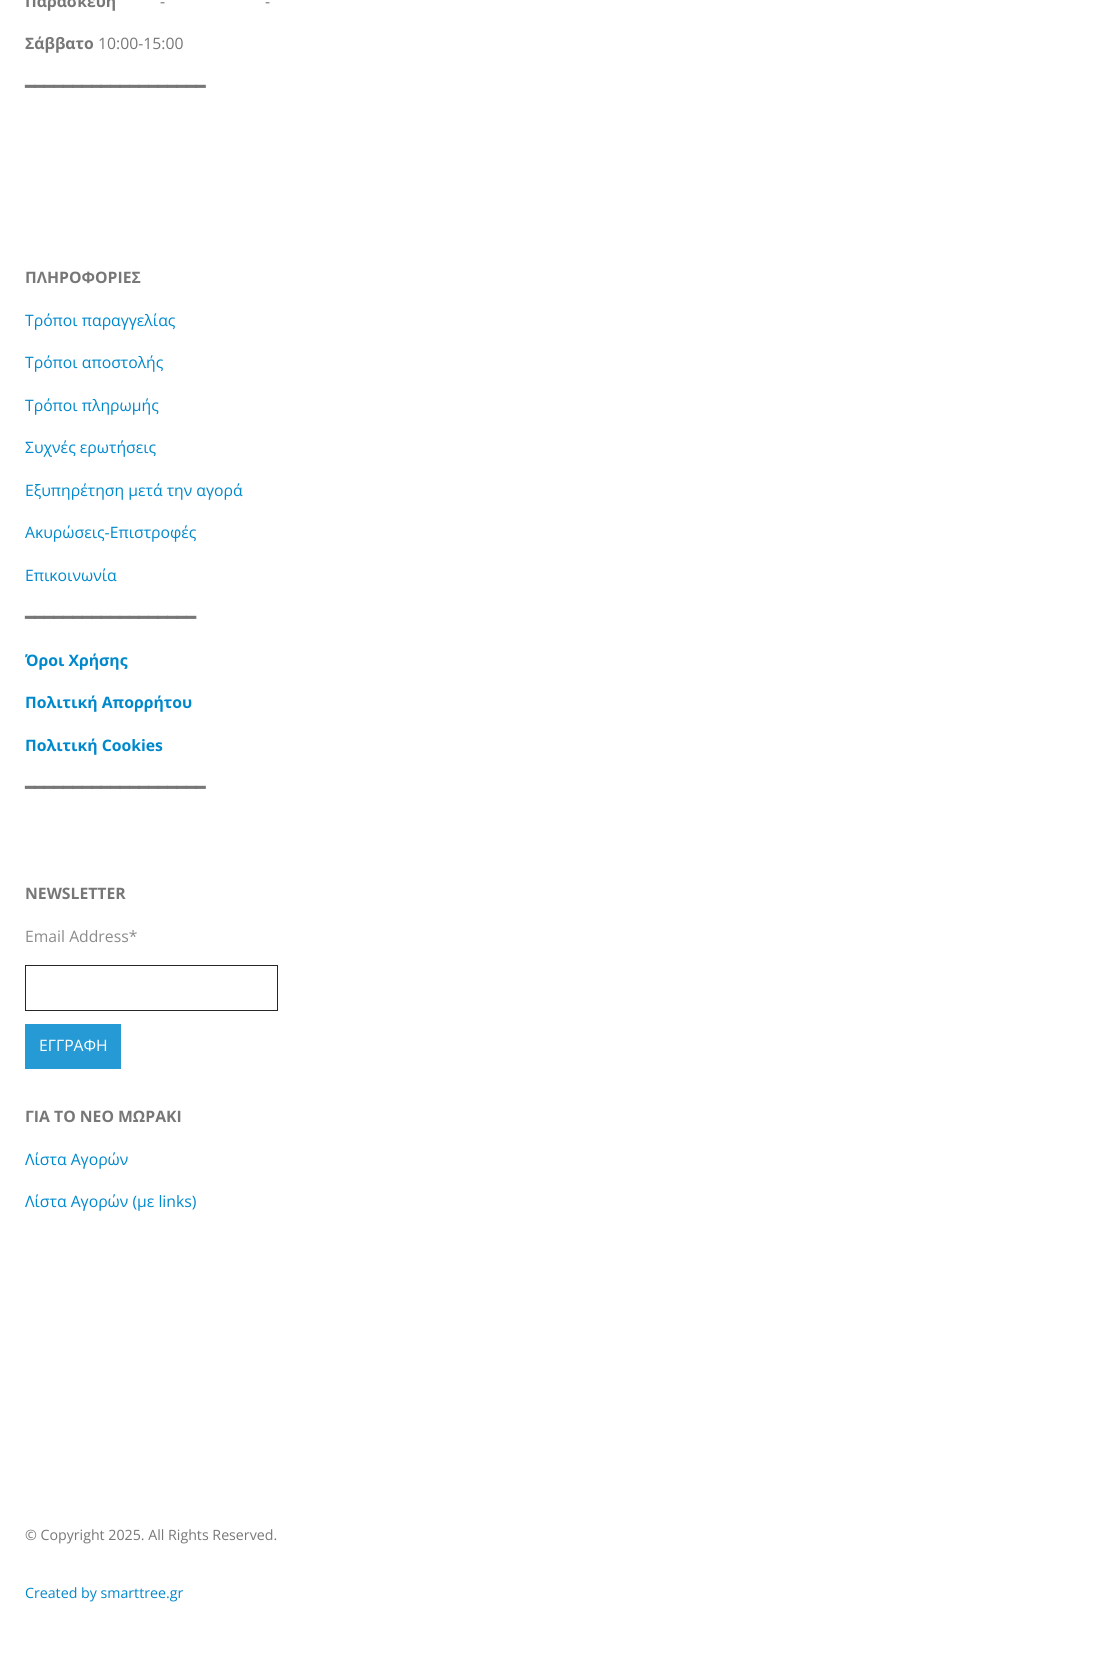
#include <cairo.h>
#include <math.h>
#include <stddef.h>

static cairo_t *ctx;

static void use_color(int r, int g, int b) {
    cairo_set_source_rgb(ctx, r / 255.0, g / 255.0, b / 255.0);
}

int main(void) {
    cairo_surface_t *surface = cairo_image_surface_create(CAIRO_FORMAT_RGB24, 1100, 1663);
    ctx = cairo_create(surface);
    cairo_font_options_t *options = cairo_font_options_create();
    cairo_font_options_set_hint_metrics(options, CAIRO_HINT_METRICS_OFF);
    cairo_font_options_set_hint_style(options, CAIRO_HINT_STYLE_NONE);
    cairo_set_font_options(ctx, options);
    cairo_set_miter_limit(ctx, 4);
    use_color(255, 255, 255);
    cairo_paint(ctx);
    cairo_select_font_face(ctx, "Open Sans", CAIRO_FONT_SLANT_NORMAL, CAIRO_FONT_WEIGHT_BOLD);
    cairo_set_font_size(ctx, 15.75);
    use_color(119, 119, 119);
    cairo_move_to(ctx, 25, 7);
    cairo_show_text(ctx, "Παρασκευή");
    cairo_select_font_face(ctx, "Open Sans", CAIRO_FONT_SLANT_NORMAL, CAIRO_FONT_WEIGHT_NORMAL);
    cairo_move_to(ctx, 160, 7);
    cairo_show_text(ctx, "-");
    cairo_move_to(ctx, 265, 7);
    cairo_show_text(ctx, "-");
    cairo_select_font_face(ctx, "Open Sans", CAIRO_FONT_SLANT_NORMAL, CAIRO_FONT_WEIGHT_BOLD);
    cairo_move_to(ctx, 25, 49);
    cairo_show_text(ctx, "Σάββατο");
    cairo_select_font_face(ctx, "Open Sans", CAIRO_FONT_SLANT_NORMAL, CAIRO_FONT_WEIGHT_NORMAL);
    cairo_move_to(ctx, 98, 49);
    cairo_show_text(ctx, "10:00-15:00");
    cairo_select_font_face(ctx, "DejaVu Sans", CAIRO_FONT_SLANT_NORMAL, CAIRO_FONT_WEIGHT_BOLD);
    cairo_move_to(ctx, 25, 92);
    cairo_show_text(ctx, "━━━━━━━━━━━━━━━━━━━");
    cairo_select_font_face(ctx, "Open Sans", CAIRO_FONT_SLANT_NORMAL, CAIRO_FONT_WEIGHT_BOLD);
    cairo_move_to(ctx, 25, 283);
    cairo_show_text(ctx, "ΠΛΗΡΟΦΟΡΙΕΣ");
    cairo_select_font_face(ctx, "Open Sans", CAIRO_FONT_SLANT_NORMAL, CAIRO_FONT_WEIGHT_NORMAL);
    use_color(0, 136, 204);
    cairo_move_to(ctx, 25, 326);
    cairo_show_text(ctx, "Τρόποι παραγγελίας");
    cairo_move_to(ctx, 25, 368);
    cairo_show_text(ctx, "Τρόποι αποστολής");
    cairo_move_to(ctx, 25, 411);
    cairo_show_text(ctx, "Τρόποι πληρωμής");
    cairo_move_to(ctx, 25, 453);
    cairo_show_text(ctx, "Συχνές ερωτήσεις");
    cairo_move_to(ctx, 25, 496);
    cairo_show_text(ctx, "Εξυπηρέτηση μετά την αγορά");
    cairo_move_to(ctx, 25, 538);
    cairo_show_text(ctx, "Ακυρώσεις-Επιστροφές");
    cairo_move_to(ctx, 25, 581);
    cairo_show_text(ctx, "Επικοινωνία");
    cairo_select_font_face(ctx, "DejaVu Sans", CAIRO_FONT_SLANT_NORMAL, CAIRO_FONT_WEIGHT_BOLD);
    use_color(119, 119, 119);
    cairo_move_to(ctx, 25, 623);
    cairo_show_text(ctx, "━━━━━━━━━━━━━━━━━━");
    cairo_select_font_face(ctx, "Open Sans", CAIRO_FONT_SLANT_NORMAL, CAIRO_FONT_WEIGHT_BOLD);
    use_color(0, 136, 204);
    cairo_move_to(ctx, 25, 666);
    cairo_show_text(ctx, "Όροι Χρήσης");
    cairo_move_to(ctx, 25, 708);
    cairo_show_text(ctx, "Πολιτική Απορρήτου");
    cairo_move_to(ctx, 25, 751);
    cairo_show_text(ctx, "Πολιτική Cookies");
    cairo_select_font_face(ctx, "DejaVu Sans", CAIRO_FONT_SLANT_NORMAL, CAIRO_FONT_WEIGHT_BOLD);
    use_color(119, 119, 119);
    cairo_move_to(ctx, 25, 793);
    cairo_show_text(ctx, "━━━━━━━━━━━━━━━━━━━");
    cairo_select_font_face(ctx, "Open Sans", CAIRO_FONT_SLANT_NORMAL, CAIRO_FONT_WEIGHT_BOLD);
    cairo_move_to(ctx, 25, 899);
    cairo_show_text(ctx, "NEWSLETTER");
    cairo_select_font_face(ctx, "Open Sans", CAIRO_FONT_SLANT_NORMAL, CAIRO_FONT_WEIGHT_NORMAL);
    use_color(139, 139, 139);
    cairo_move_to(ctx, 25, 942);
    cairo_show_text(ctx, "Email Address*");
    cairo_rectangle(ctx, 25.5, 965.5, 252, 45);
    use_color(38, 38, 38);
    cairo_set_line_width(ctx, 1);
    cairo_stroke(ctx);
    use_color(38, 154, 212);
    cairo_rectangle(ctx, 25, 1024, 96, 45);
    cairo_fill(ctx);
    use_color(255, 255, 255);
    cairo_move_to(ctx, 39, 1051);
    cairo_show_text(ctx, "ΕΓΓΡΑΦΗ");
    cairo_select_font_face(ctx, "Open Sans", CAIRO_FONT_SLANT_NORMAL, CAIRO_FONT_WEIGHT_BOLD);
    use_color(119, 119, 119);
    cairo_move_to(ctx, 25, 1122);
    cairo_show_text(ctx, "ΓΙΑ ΤΟ ΝΕΟ ΜΩΡΑΚΙ");
    cairo_select_font_face(ctx, "Open Sans", CAIRO_FONT_SLANT_NORMAL, CAIRO_FONT_WEIGHT_NORMAL);
    use_color(0, 136, 204);
    cairo_move_to(ctx, 25, 1165);
    cairo_show_text(ctx, "Λίστα Αγορών");
    cairo_move_to(ctx, 25, 1207);
    cairo_show_text(ctx, "Λίστα Αγορών (με links)");
    cairo_set_font_size(ctx, 14.2);
    use_color(119, 119, 119);
    cairo_move_to(ctx, 25, 1540);
    cairo_show_text(ctx, "© Copyright 2025. All Rights Reserved.");
    use_color(0, 136, 204);
    cairo_move_to(ctx, 25, 1598);
    cairo_show_text(ctx, "Created by smarttree.gr");
    cairo_surface_write_to_png(surface, "result.png");
    cairo_font_options_destroy(options);
    cairo_destroy(ctx);
    cairo_surface_destroy(surface);
    return 0;
}
